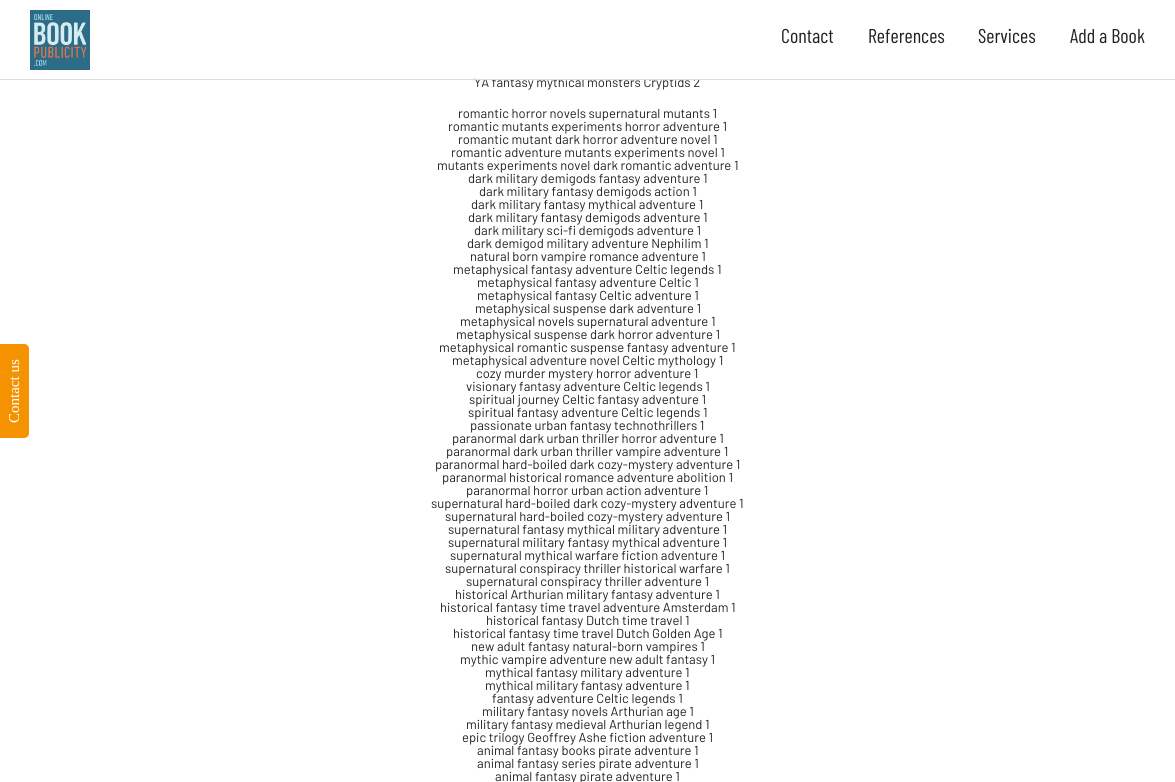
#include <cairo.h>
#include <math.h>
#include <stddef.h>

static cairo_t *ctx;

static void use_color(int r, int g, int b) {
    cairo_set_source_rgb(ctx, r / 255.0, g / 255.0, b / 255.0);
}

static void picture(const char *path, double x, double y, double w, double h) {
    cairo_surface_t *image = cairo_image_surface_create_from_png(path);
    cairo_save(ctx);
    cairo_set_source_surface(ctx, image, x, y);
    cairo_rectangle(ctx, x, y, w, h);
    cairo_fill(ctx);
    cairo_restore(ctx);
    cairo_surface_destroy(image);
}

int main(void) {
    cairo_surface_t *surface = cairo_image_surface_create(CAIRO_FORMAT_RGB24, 1175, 782);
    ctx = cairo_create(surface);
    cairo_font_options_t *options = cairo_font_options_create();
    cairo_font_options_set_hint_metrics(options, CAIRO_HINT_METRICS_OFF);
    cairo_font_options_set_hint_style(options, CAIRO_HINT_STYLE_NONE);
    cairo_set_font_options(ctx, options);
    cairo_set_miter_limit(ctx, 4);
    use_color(255, 255, 255);
    cairo_paint(ctx);
    cairo_select_font_face(ctx, "Barlow", CAIRO_FONT_SLANT_NORMAL, CAIRO_FONT_WEIGHT_NORMAL);
    cairo_set_font_size(ctx, 13);
    use_color(34, 34, 34);
    cairo_move_to(ctx, 474, 87);
    cairo_show_text(ctx, "YA fantasy mythical monsters Cryptids 2");
    use_color(255, 255, 255);
    cairo_rectangle(ctx, 475, 77, 225, 2);
    cairo_fill(ctx);
    use_color(221, 221, 221);
    cairo_rectangle(ctx, 0, 79, 1175, 1);
    cairo_fill(ctx);
    picture("img1.png", 30, 10, 60, 60);
    cairo_select_font_face(ctx, "Barlow Condensed", CAIRO_FONT_SLANT_NORMAL, CAIRO_FONT_WEIGHT_NORMAL);
    cairo_set_font_size(ctx, 20);
    use_color(34, 34, 34);
    cairo_move_to(ctx, 781, 43);
    cairo_show_text(ctx, "Contact");
    cairo_move_to(ctx, 868, 43);
    cairo_show_text(ctx, "References");
    cairo_move_to(ctx, 978, 43);
    cairo_show_text(ctx, "Services");
    cairo_move_to(ctx, 1070, 43);
    cairo_show_text(ctx, "Add a Book");
    use_color(245, 146, 2);
    cairo_new_path(ctx);
    cairo_move_to(ctx, 0, 438);
    cairo_line_to(ctx, 0, 344);
    cairo_line_to(ctx, 24, 344);
    cairo_curve_to(ctx, 27, 344, 29, 346, 29, 349);
    cairo_line_to(ctx, 29, 433);
    cairo_curve_to(ctx, 29, 436, 27, 438, 24, 438);
    cairo_close_path(ctx);
    cairo_fill(ctx);
    cairo_select_font_face(ctx, "Liberation Serif", CAIRO_FONT_SLANT_NORMAL, CAIRO_FONT_WEIGHT_NORMAL);
    cairo_set_font_size(ctx, 15);
    use_color(255, 255, 255);
    cairo_save(ctx);
    cairo_translate(ctx, 19, 423);
    cairo_rotate(ctx, -90 * M_PI / 180);
    cairo_move_to(ctx, 0, 0);
    cairo_show_text(ctx, "Contact us");
    cairo_restore(ctx);
    cairo_select_font_face(ctx, "Barlow", CAIRO_FONT_SLANT_NORMAL, CAIRO_FONT_WEIGHT_NORMAL);
    cairo_set_font_size(ctx, 13);
    use_color(34, 34, 34);
    cairo_move_to(ctx, 458, 118);
    cairo_show_text(ctx, "romantic horror novels supernatural mutants 1");
    cairo_move_to(ctx, 448, 131);
    cairo_show_text(ctx, "romantic mutants experiments horror adventure 1");
    cairo_move_to(ctx, 458, 144);
    cairo_show_text(ctx, "romantic mutant dark horror adventure novel 1");
    cairo_move_to(ctx, 451, 157);
    cairo_show_text(ctx, "romantic adventure mutants experiments novel 1");
    cairo_move_to(ctx, 437, 170);
    cairo_show_text(ctx, "mutants experiments novel dark romantic adventure 1");
    cairo_move_to(ctx, 468, 183);
    cairo_show_text(ctx, "dark military demigods fantasy adventure 1");
    cairo_move_to(ctx, 479, 196);
    cairo_show_text(ctx, "dark military fantasy demigods action 1");
    cairo_move_to(ctx, 471, 209);
    cairo_show_text(ctx, "dark military fantasy mythical adventure 1");
    cairo_move_to(ctx, 468, 222);
    cairo_show_text(ctx, "dark military fantasy demigods adventure 1");
    cairo_move_to(ctx, 474, 235);
    cairo_show_text(ctx, "dark military sci-fi demigods adventure 1");
    cairo_move_to(ctx, 467, 248);
    cairo_show_text(ctx, "dark demigod military adventure Nephilim 1");
    cairo_move_to(ctx, 470, 261);
    cairo_show_text(ctx, "natural born vampire romance adventure 1");
    cairo_move_to(ctx, 453, 274);
    cairo_show_text(ctx, "metaphysical fantasy adventure Celtic legends 1");
    cairo_move_to(ctx, 477, 287);
    cairo_show_text(ctx, "metaphysical fantasy adventure Celtic 1");
    cairo_move_to(ctx, 477, 300);
    cairo_show_text(ctx, "metaphysical fantasy Celtic adventure 1");
    cairo_move_to(ctx, 475, 313);
    cairo_show_text(ctx, "metaphysical suspense dark adventure 1");
    cairo_move_to(ctx, 460, 326);
    cairo_show_text(ctx, "metaphysical novels supernatural adventure 1");
    cairo_move_to(ctx, 456, 339);
    cairo_show_text(ctx, "metaphysical suspense dark horror adventure 1");
    cairo_move_to(ctx, 439, 352);
    cairo_show_text(ctx, "metaphysical romantic suspense fantasy adventure 1");
    cairo_move_to(ctx, 452, 365);
    cairo_show_text(ctx, "metaphysical adventure novel Celtic mythology 1");
    cairo_move_to(ctx, 476, 378);
    cairo_show_text(ctx, "cozy murder mystery horror adventure 1");
    cairo_move_to(ctx, 466, 391);
    cairo_show_text(ctx, "visionary fantasy adventure Celtic legends 1");
    cairo_move_to(ctx, 469, 404);
    cairo_show_text(ctx, "spiritual journey Celtic fantasy adventure 1");
    cairo_move_to(ctx, 468, 417);
    cairo_show_text(ctx, "spiritual fantasy adventure Celtic legends 1");
    cairo_move_to(ctx, 470, 430);
    cairo_show_text(ctx, "passionate urban fantasy technothrillers 1");
    cairo_move_to(ctx, 452, 443);
    cairo_show_text(ctx, "paranormal dark urban thriller horror adventure 1");
    cairo_move_to(ctx, 446, 456);
    cairo_show_text(ctx, "paranormal dark urban thriller vampire adventure 1");
    cairo_move_to(ctx, 435, 469);
    cairo_show_text(ctx, "paranormal hard-boiled dark cozy-mystery adventure 1");
    cairo_move_to(ctx, 442, 482);
    cairo_show_text(ctx, "paranormal historical romance adventure abolition 1");
    cairo_move_to(ctx, 466, 495);
    cairo_show_text(ctx, "paranormal horror urban action adventure 1");
    cairo_move_to(ctx, 431, 508);
    cairo_show_text(ctx, "supernatural hard-boiled dark cozy-mystery adventure 1");
    cairo_move_to(ctx, 445, 521);
    cairo_show_text(ctx, "supernatural hard-boiled cozy-mystery adventure 1");
    cairo_move_to(ctx, 448, 534);
    cairo_show_text(ctx, "supernatural fantasy mythical military adventure 1");
    cairo_move_to(ctx, 448, 547);
    cairo_show_text(ctx, "supernatural military fantasy mythical adventure 1");
    cairo_move_to(ctx, 450, 560);
    cairo_show_text(ctx, "supernatural mythical warfare fiction adventure 1");
    cairo_move_to(ctx, 445, 573);
    cairo_show_text(ctx, "supernatural conspiracy thriller historical warfare 1");
    cairo_move_to(ctx, 466, 586);
    cairo_show_text(ctx, "supernatural conspiracy thriller adventure 1");
    cairo_move_to(ctx, 455, 599);
    cairo_show_text(ctx, "historical Arthurian military fantasy adventure 1");
    cairo_move_to(ctx, 440, 612);
    cairo_show_text(ctx, "historical fantasy time travel adventure Amsterdam 1");
    cairo_move_to(ctx, 486, 625);
    cairo_show_text(ctx, "historical fantasy Dutch time travel 1");
    cairo_move_to(ctx, 453, 638);
    cairo_show_text(ctx, "historical fantasy time travel Dutch Golden Age 1");
    cairo_move_to(ctx, 471, 651);
    cairo_show_text(ctx, "new adult fantasy natural-born vampires 1");
    cairo_move_to(ctx, 460, 664);
    cairo_show_text(ctx, "mythic vampire adventure new adult fantasy 1");
    cairo_move_to(ctx, 485, 677);
    cairo_show_text(ctx, "mythical fantasy military adventure 1");
    cairo_move_to(ctx, 485, 690);
    cairo_show_text(ctx, "mythical military fantasy adventure 1");
    cairo_move_to(ctx, 492, 703);
    cairo_show_text(ctx, "fantasy adventure Celtic legends 1");
    cairo_move_to(ctx, 482, 716);
    cairo_show_text(ctx, "military fantasy novels Arthurian age 1");
    cairo_move_to(ctx, 466, 729);
    cairo_show_text(ctx, "military fantasy medieval Arthurian legend 1");
    cairo_move_to(ctx, 462, 742);
    cairo_show_text(ctx, "epic trilogy Geoffrey Ashe fiction adventure 1");
    cairo_move_to(ctx, 477, 755);
    cairo_show_text(ctx, "animal fantasy books pirate adventure 1");
    cairo_move_to(ctx, 477, 768);
    cairo_show_text(ctx, "animal fantasy series pirate adventure 1");
    cairo_move_to(ctx, 495, 781);
    cairo_show_text(ctx, "animal fantasy pirate adventure 1");
    cairo_surface_write_to_png(surface, "result.png");
    cairo_font_options_destroy(options);
    cairo_destroy(ctx);
    cairo_surface_destroy(surface);
    return 0;
}
